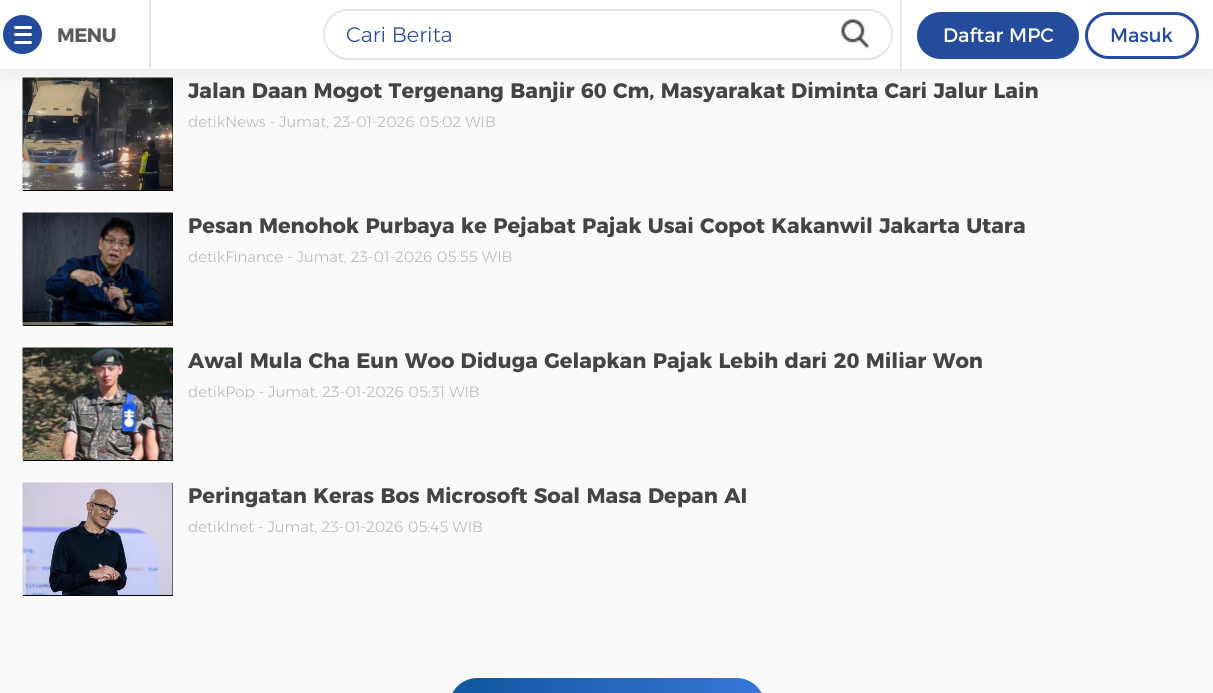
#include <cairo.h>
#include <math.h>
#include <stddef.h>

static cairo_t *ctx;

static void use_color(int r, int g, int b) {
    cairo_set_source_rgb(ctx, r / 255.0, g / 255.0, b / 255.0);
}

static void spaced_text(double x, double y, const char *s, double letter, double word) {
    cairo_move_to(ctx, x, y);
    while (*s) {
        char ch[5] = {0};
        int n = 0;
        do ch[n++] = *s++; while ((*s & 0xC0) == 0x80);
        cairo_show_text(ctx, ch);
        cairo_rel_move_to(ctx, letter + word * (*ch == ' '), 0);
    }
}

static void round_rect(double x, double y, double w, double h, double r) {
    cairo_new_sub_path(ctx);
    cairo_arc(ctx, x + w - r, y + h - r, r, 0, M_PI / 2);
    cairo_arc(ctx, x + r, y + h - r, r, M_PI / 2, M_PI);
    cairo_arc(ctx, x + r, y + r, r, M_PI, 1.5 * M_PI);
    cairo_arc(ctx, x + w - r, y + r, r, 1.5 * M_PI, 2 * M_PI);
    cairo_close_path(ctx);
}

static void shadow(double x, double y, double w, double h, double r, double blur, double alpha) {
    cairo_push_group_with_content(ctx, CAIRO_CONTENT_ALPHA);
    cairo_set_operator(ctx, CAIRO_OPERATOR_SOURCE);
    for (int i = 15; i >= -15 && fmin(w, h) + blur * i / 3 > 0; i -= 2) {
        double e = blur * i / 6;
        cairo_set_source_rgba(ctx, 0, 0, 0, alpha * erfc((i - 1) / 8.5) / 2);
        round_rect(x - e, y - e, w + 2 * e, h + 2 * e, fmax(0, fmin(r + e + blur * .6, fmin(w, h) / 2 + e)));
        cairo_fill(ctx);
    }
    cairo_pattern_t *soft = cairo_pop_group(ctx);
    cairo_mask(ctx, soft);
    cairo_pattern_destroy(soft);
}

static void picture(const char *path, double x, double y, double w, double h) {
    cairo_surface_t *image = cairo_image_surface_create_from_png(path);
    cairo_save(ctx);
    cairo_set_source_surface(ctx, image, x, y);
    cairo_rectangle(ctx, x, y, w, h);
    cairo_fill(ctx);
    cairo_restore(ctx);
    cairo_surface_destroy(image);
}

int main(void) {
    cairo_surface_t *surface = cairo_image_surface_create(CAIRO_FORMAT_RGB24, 1213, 693);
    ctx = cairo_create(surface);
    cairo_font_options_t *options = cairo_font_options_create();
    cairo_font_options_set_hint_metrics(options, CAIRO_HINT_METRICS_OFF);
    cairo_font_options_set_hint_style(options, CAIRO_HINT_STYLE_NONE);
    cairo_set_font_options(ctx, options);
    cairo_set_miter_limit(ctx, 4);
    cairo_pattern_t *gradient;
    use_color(250, 250, 250);
    cairo_paint(ctx);
    use_color(0, 0, 0);
    cairo_rectangle(ctx, 23, 78, 150, 113);
    cairo_fill(ctx);
    picture("img2.png", 22, 77, 151, 113);
    use_color(0, 0, 0);
    shadow(0, 0, 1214, 69, 0, 11, 0.1);
    use_color(255, 255, 255);
    cairo_rectangle(ctx, 0, 0, 1213, 69);
    cairo_fill(ctx);
    use_color(229, 229, 229);
    cairo_rectangle(ctx, 149, 0, 2, 69);
    cairo_fill(ctx);
    use_color(36, 75, 156);
    cairo_arc(ctx, 22.5, 34.5, 19.5, 0, 2 * M_PI);
    cairo_fill(ctx);
    use_color(255, 255, 255);
    round_rect(14, 26, 18, 3, 1.5);
    cairo_fill(ctx);
    round_rect(14, 33, 18, 3, 1.5);
    cairo_fill(ctx);
    round_rect(14, 41, 18, 3, 1.5);
    cairo_fill(ctx);
    cairo_select_font_face(ctx, "Montserrat", CAIRO_FONT_SLANT_NORMAL, CAIRO_FONT_WEIGHT_BOLD);
    cairo_set_font_size(ctx, 19.5);
    use_color(91, 91, 91);
    spaced_text(57, 42, "MENU", -0.5, 0);
    round_rect(324, 10, 568, 49, 24.5);
    use_color(229, 229, 229);
    cairo_stroke(ctx);
    cairo_save(ctx);
    cairo_rectangle(ctx, 347, 21, 484, 27);
    cairo_clip(ctx);
    cairo_select_font_face(ctx, "Montserrat Light", CAIRO_FONT_SLANT_NORMAL, CAIRO_FONT_WEIGHT_NORMAL);
    cairo_set_font_size(ctx, 21);
    use_color(36, 75, 156);
    cairo_move_to(ctx, 346, 42);
    cairo_show_text(ctx, "Cari Berita");
    cairo_restore(ctx);
    picture("img1.png", 841, 19, 28, 30);
    cairo_rectangle(ctx, 900, 0, 2, 69);
    cairo_fill(ctx);
    use_color(36, 75, 156);
    round_rect(918.5, 13.5, 159, 44, 22);
    cairo_fill_preserve(ctx);
    cairo_set_line_width(ctx, 3);
    cairo_stroke(ctx);
    cairo_select_font_face(ctx, "Montserrat", CAIRO_FONT_SLANT_NORMAL, CAIRO_FONT_WEIGHT_NORMAL);
    use_color(255, 255, 255);
    cairo_move_to(ctx, 943, 42);
    cairo_show_text(ctx, "Daftar MPC");
    round_rect(1086.5, 13.5, 111, 44, 22);
    use_color(36, 75, 156);
    cairo_stroke(ctx);
    cairo_move_to(ctx, 1110, 42);
    cairo_show_text(ctx, "Masuk");
    cairo_select_font_face(ctx, "Montserrat", CAIRO_FONT_SLANT_NORMAL, CAIRO_FONT_WEIGHT_BOLD);
    cairo_set_font_size(ctx, 21);
    use_color(68, 68, 68);
    cairo_move_to(ctx, 188, 98);
    cairo_show_text(ctx, "Jalan Daan Mogot Tergenang Banjir 60 Cm, Masyarakat Diminta Cari Jalur Lain");
    cairo_select_font_face(ctx, "Montserrat Light", CAIRO_FONT_SLANT_NORMAL, CAIRO_FONT_WEIGHT_NORMAL);
    cairo_set_font_size(ctx, 15);
    use_color(186, 186, 186);
    cairo_move_to(ctx, 188, 127);
    cairo_show_text(ctx, "detikNews - Jumat, 23-01-2026 05:02 WIB");
    use_color(0, 0, 0);
    cairo_rectangle(ctx, 23, 213, 150, 113);
    cairo_fill(ctx);
    picture("img3.png", 22, 212, 151, 113);
    cairo_select_font_face(ctx, "Montserrat", CAIRO_FONT_SLANT_NORMAL, CAIRO_FONT_WEIGHT_BOLD);
    cairo_set_font_size(ctx, 21);
    use_color(68, 68, 68);
    cairo_move_to(ctx, 188, 233);
    cairo_show_text(ctx, "Pesan Menohok Purbaya ke Pejabat Pajak Usai Copot Kakanwil Jakarta Utara");
    cairo_select_font_face(ctx, "Montserrat Light", CAIRO_FONT_SLANT_NORMAL, CAIRO_FONT_WEIGHT_NORMAL);
    cairo_set_font_size(ctx, 15);
    use_color(186, 186, 186);
    cairo_move_to(ctx, 188, 262);
    cairo_show_text(ctx, "detikFinance - Jumat, 23-01-2026 05:55 WIB");
    use_color(0, 0, 0);
    cairo_rectangle(ctx, 23, 348, 150, 113);
    cairo_fill(ctx);
    picture("img4.png", 22, 347, 151, 113);
    cairo_select_font_face(ctx, "Montserrat", CAIRO_FONT_SLANT_NORMAL, CAIRO_FONT_WEIGHT_BOLD);
    cairo_set_font_size(ctx, 21);
    use_color(68, 68, 68);
    cairo_move_to(ctx, 188, 368);
    cairo_show_text(ctx, "Awal Mula Cha Eun Woo Diduga Gelapkan Pajak Lebih dari 20 Miliar Won");
    cairo_save(ctx);
    cairo_rectangle(ctx, 188, 383, 795, 15);
    cairo_clip(ctx);
    cairo_select_font_face(ctx, "Montserrat Light", CAIRO_FONT_SLANT_NORMAL, CAIRO_FONT_WEIGHT_NORMAL);
    cairo_set_font_size(ctx, 15);
    use_color(186, 186, 186);
    cairo_move_to(ctx, 188, 397);
    cairo_show_text(ctx, "detikPop - Jumat, 23-01-2026 05:31 WIB");
    cairo_restore(ctx);
    use_color(0, 0, 0);
    cairo_rectangle(ctx, 23, 483, 150, 113);
    cairo_fill(ctx);
    picture("img5.png", 22, 482, 151, 113);
    use_color(68, 68, 68);
    cairo_move_to(ctx, 188, 503);
    cairo_show_text(ctx, "Peringatan Keras Bos Microsoft Soal Masa Depan AI");
    cairo_select_font_face(ctx, "Montserrat Light", CAIRO_FONT_SLANT_NORMAL, CAIRO_FONT_WEIGHT_NORMAL);
    cairo_set_font_size(ctx, 15);
    use_color(186, 186, 186);
    cairo_move_to(ctx, 188, 532);
    cairo_show_text(ctx, "detikInet - Jumat, 23-01-2026 05:45 WIB");
    gradient = cairo_pattern_create_linear(449, 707, 765, 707);
    cairo_pattern_add_color_stop_rgba(gradient, 0, 0.059, 0.341, 0.624, 1);
    cairo_pattern_add_color_stop_rgba(gradient, 1, 0.22, 0.467, 0.851, 1);
    cairo_set_source(ctx, gradient);
    cairo_pattern_destroy(gradient);
    round_rect(449, 678, 316, 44, 28.5);
    cairo_fill(ctx);
    cairo_surface_write_to_png(surface, "result.png");
    cairo_font_options_destroy(options);
    cairo_destroy(ctx);
    cairo_surface_destroy(surface);
    return 0;
}
